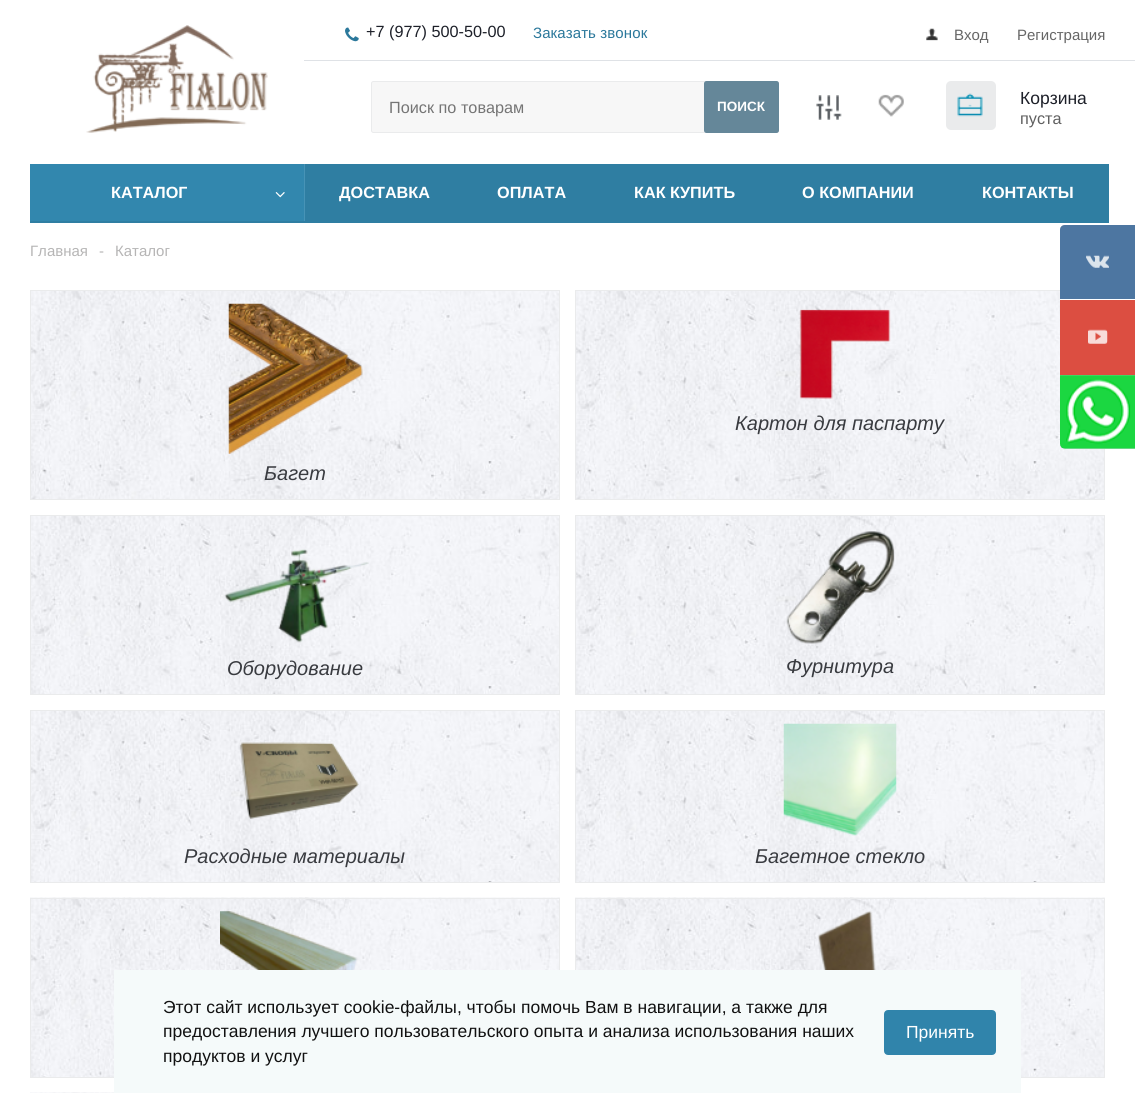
#include <cairo.h>
#include <math.h>
#include <stddef.h>

static cairo_t *ctx;

static void use_color(int r, int g, int b) {
    cairo_set_source_rgb(ctx, r / 255.0, g / 255.0, b / 255.0);
}

static void spaced_text(double x, double y, const char *s, double letter, double word) {
    cairo_move_to(ctx, x, y);
    while (*s) {
        char ch[5] = {0};
        int n = 0;
        do ch[n++] = *s++; while ((*s & 0xC0) == 0x80);
        cairo_show_text(ctx, ch);
        cairo_rel_move_to(ctx, letter + word * (*ch == ' '), 0);
    }
}

static void round_rect(double x, double y, double w, double h, double r) {
    cairo_new_sub_path(ctx);
    cairo_arc(ctx, x + w - r, y + h - r, r, 0, M_PI / 2);
    cairo_arc(ctx, x + r, y + h - r, r, M_PI / 2, M_PI);
    cairo_arc(ctx, x + r, y + r, r, M_PI, 1.5 * M_PI);
    cairo_arc(ctx, x + w - r, y + r, r, 1.5 * M_PI, 2 * M_PI);
    cairo_close_path(ctx);
}

static void picture(const char *path, double x, double y, double w, double h) {
    cairo_surface_t *image = cairo_image_surface_create_from_png(path);
    cairo_save(ctx);
    cairo_set_source_surface(ctx, image, x, y);
    cairo_rectangle(ctx, x, y, w, h);
    cairo_fill(ctx);
    cairo_restore(ctx);
    cairo_surface_destroy(image);
}

int main(void) {
    cairo_surface_t *surface = cairo_image_surface_create(CAIRO_FORMAT_RGB24, 1135, 1093);
    ctx = cairo_create(surface);
    cairo_font_options_t *options = cairo_font_options_create();
    cairo_font_options_set_hint_metrics(options, CAIRO_HINT_METRICS_OFF);
    cairo_font_options_set_hint_style(options, CAIRO_HINT_STYLE_NONE);
    cairo_set_font_options(ctx, options);
    cairo_set_miter_limit(ctx, 4);
    use_color(255, 255, 255);
    cairo_paint(ctx);
    use_color(223, 226, 230);
    cairo_rectangle(ctx, 304, 60, 831, 1);
    cairo_fill(ctx);
    picture("img1.png", 345, 27, 14, 15);
    cairo_select_font_face(ctx, "Liberation Sans", CAIRO_FONT_SLANT_NORMAL, CAIRO_FONT_WEIGHT_NORMAL);
    cairo_set_font_size(ctx, 16.25);
    use_color(29, 32, 41);
    cairo_move_to(ctx, 366, 37);
    cairo_show_text(ctx, "+7 (977) 500-50-00");
    cairo_set_font_size(ctx, 15);
    use_color(43, 120, 155);
    spaced_text(533, 38, "Заказать звонок", 0.1, 0);
    picture("img2.png", 926, 28, 12, 13);
    use_color(102, 102, 102);
    cairo_move_to(ctx, 954, 40);
    cairo_show_text(ctx, "Вход");
    cairo_move_to(ctx, 1017, 40);
    cairo_show_text(ctx, "Регистрация");
    picture("img3.png", 86, 25, 182, 108);
    use_color(247, 247, 247);
    round_rect(371.5, 81.5, 407, 51, 2);
    cairo_fill_preserve(ctx);
    use_color(234, 235, 236);
    cairo_set_line_width(ctx, 1);
    cairo_stroke(ctx);
    cairo_set_font_size(ctx, 16.25);
    use_color(117, 117, 117);
    cairo_move_to(ctx, 389, 113);
    cairo_show_text(ctx, "Поиск по товарам");
    use_color(101, 135, 153);
    round_rect(704, 81, 75, 52, 2.5);
    cairo_fill(ctx);
    cairo_select_font_face(ctx, "Liberation Sans", CAIRO_FONT_SLANT_NORMAL, CAIRO_FONT_WEIGHT_BOLD);
    cairo_set_font_size(ctx, 13.5);
    use_color(255, 255, 255);
    cairo_move_to(ctx, 717, 111);
    cairo_show_text(ctx, "ПОИСК");
    picture("img4.png", 816, 95, 26, 25);
    picture("img5.png", 878, 94, 26, 23);
    use_color(234, 235, 236);
    round_rect(946, 81, 50, 49, 5);
    cairo_fill(ctx);
    picture("img6.png", 957, 93, 26, 24);
    cairo_select_font_face(ctx, "Liberation Sans", CAIRO_FONT_SLANT_NORMAL, CAIRO_FONT_WEIGHT_NORMAL);
    cairo_set_font_size(ctx, 17.5);
    use_color(29, 32, 41);
    cairo_move_to(ctx, 1020, 104);
    cairo_show_text(ctx, "Корзина");
    cairo_set_font_size(ctx, 16.25);
    use_color(95, 95, 95);
    cairo_move_to(ctx, 1020, 124);
    cairo_show_text(ctx, "пуста");
    use_color(47, 126, 162);
    cairo_rectangle(ctx, 30, 164, 1079, 59);
    cairo_fill(ctx);
    use_color(50, 135, 174);
    cairo_rectangle(ctx, 30, 164, 274, 57);
    cairo_fill(ctx);
    cairo_select_font_face(ctx, "Liberation Sans", CAIRO_FONT_SLANT_NORMAL, CAIRO_FONT_WEIGHT_BOLD);
    use_color(255, 255, 255);
    cairo_move_to(ctx, 111, 198);
    cairo_show_text(ctx, "КАТАЛОГ");
    use_color(71, 147, 182);
    cairo_rectangle(ctx, 304, 164, 1, 57);
    cairo_fill(ctx);
    picture("img7.png", 275, 192, 10, 6);
    use_color(255, 255, 255);
    cairo_move_to(ctx, 339, 198);
    cairo_show_text(ctx, "ДОСТАВКА");
    cairo_move_to(ctx, 497, 198);
    cairo_show_text(ctx, "ОПЛАТА");
    cairo_move_to(ctx, 634, 198);
    cairo_show_text(ctx, "КАК КУПИТЬ");
    cairo_move_to(ctx, 802, 198);
    cairo_show_text(ctx, "О КОМПАНИИ");
    cairo_move_to(ctx, 982, 198);
    cairo_show_text(ctx, "КОНТАКТЫ");
    cairo_select_font_face(ctx, "Liberation Sans", CAIRO_FONT_SLANT_NORMAL, CAIRO_FONT_WEIGHT_NORMAL);
    cairo_set_font_size(ctx, 15);
    use_color(182, 181, 181);
    cairo_move_to(ctx, 30, 256);
    cairo_show_text(ctx, "Главная");
    cairo_move_to(ctx, 99, 256);
    cairo_show_text(ctx, "-");
    cairo_move_to(ctx, 115, 256);
    cairo_show_text(ctx, "Каталог");
    picture("img8.png", 576, 291, 528, 208);
    cairo_rectangle(ctx, 575.5, 290.5, 529, 209);
    use_color(234, 235, 236);
    cairo_stroke(ctx);
    picture("img9.png", 799, 309, 92, 90);
    cairo_select_font_face(ctx, "Liberation Sans", CAIRO_FONT_SLANT_ITALIC, CAIRO_FONT_WEIGHT_NORMAL);
    cairo_set_font_size(ctx, 20);
    use_color(57, 59, 64);
    cairo_move_to(ctx, 735, 430);
    cairo_show_text(ctx, "Картон для паспарту");
    picture("img10.png", 31, 291, 528, 208);
    cairo_rectangle(ctx, 30.5, 290.5, 529, 209);
    use_color(234, 235, 236);
    cairo_stroke(ctx);
    picture("img11.png", 228, 303, 135, 151);
    use_color(57, 59, 64);
    cairo_move_to(ctx, 264, 480);
    cairo_show_text(ctx, "Багет");
    picture("img12.png", 31, 516, 528, 178);
    cairo_rectangle(ctx, 30.5, 515.5, 529, 179);
    use_color(234, 235, 236);
    cairo_stroke(ctx);
    picture("img13.png", 224, 549, 145, 94);
    use_color(57, 59, 64);
    cairo_move_to(ctx, 227, 675);
    cairo_show_text(ctx, "Оборудование");
    picture("img14.png", 576, 516, 528, 178);
    cairo_rectangle(ctx, 575.5, 515.5, 529, 179);
    use_color(234, 235, 236);
    cairo_stroke(ctx);
    picture("img15.png", 786, 531, 109, 113);
    use_color(57, 59, 64);
    cairo_move_to(ctx, 786, 673);
    cairo_show_text(ctx, "Фурнитура");
    picture("img16.png", 31, 711, 528, 171);
    cairo_rectangle(ctx, 30.5, 710.5, 529, 172);
    use_color(234, 235, 236);
    cairo_stroke(ctx);
    picture("img17.png", 239, 742, 120, 77);
    use_color(57, 59, 64);
    cairo_move_to(ctx, 184, 863);
    cairo_show_text(ctx, "Расходные материалы");
    picture("img18.png", 576, 711, 528, 171);
    cairo_rectangle(ctx, 575.5, 710.5, 529, 172);
    use_color(234, 235, 236);
    cairo_stroke(ctx);
    picture("img19.png", 783, 723, 114, 113);
    use_color(57, 59, 64);
    cairo_move_to(ctx, 755, 863);
    cairo_show_text(ctx, "Багетное стекло");
    picture("img20.png", 30, 897, 530, 180);
    cairo_rectangle(ctx, 30.5, 898.5, 529, 179);
    use_color(234, 235, 236);
    cairo_stroke(ctx);
    picture("img21.png", 220, 911, 138, 59);
    picture("img22.png", 575, 897, 530, 180);
    cairo_rectangle(ctx, 575.5, 898.5, 529, 179);
    cairo_stroke(ctx);
    picture("img23.png", 817, 911, 60, 59);
    picture("img24.png", 30, 1092, 84, 1);
    use_color(206, 210, 217);
    cairo_new_path(ctx);
    cairo_move_to(ctx, 1065, 225);
    cairo_line_to(ctx, 1135, 225);
    cairo_line_to(ctx, 1135, 449);
    cairo_line_to(ctx, 1065, 449);
    cairo_curve_to(ctx, 1062, 449, 1060, 447, 1060, 444);
    cairo_line_to(ctx, 1060, 230);
    cairo_curve_to(ctx, 1060, 227, 1062, 225, 1065, 225);
    cairo_close_path(ctx);
    cairo_fill(ctx);
    use_color(255, 255, 255);
    cairo_rectangle(ctx, 1060, 299, 75, 1);
    cairo_fill(ctx);
    use_color(77, 118, 161);
    cairo_new_path(ctx);
    cairo_move_to(ctx, 1065, 225);
    cairo_line_to(ctx, 1135, 225);
    cairo_line_to(ctx, 1135, 299);
    cairo_line_to(ctx, 1060, 299);
    cairo_line_to(ctx, 1060, 230);
    cairo_curve_to(ctx, 1060, 227, 1062, 225, 1065, 225);
    cairo_close_path(ctx);
    cairo_fill(ctx);
    picture("img25.png", 1086, 255, 23, 13);
    use_color(220, 78, 65);
    cairo_rectangle(ctx, 1060, 300, 75, 75);
    cairo_fill(ctx);
    picture("img26.png", 1088, 329, 20, 15);
    picture("img27.png", 1060, 375, 75, 74);
    use_color(245, 250, 250);
    cairo_rectangle(ctx, 114, 970, 907, 123);
    cairo_fill(ctx);
    cairo_select_font_face(ctx, "Liberation Sans", CAIRO_FONT_SLANT_NORMAL, CAIRO_FONT_WEIGHT_NORMAL);
    cairo_set_font_size(ctx, 17.5);
    use_color(17, 17, 17);
    cairo_move_to(ctx, 163, 1013);
    cairo_show_text(ctx, "Этот сайт использует cookie-файлы, чтобы помочь Вам в навигации, а также для");
    cairo_move_to(ctx, 163, 1037);
    cairo_show_text(ctx, "предоставления лучшего пользовательского опыта и анализа использования наших");
    cairo_move_to(ctx, 163, 1062);
    cairo_show_text(ctx, "продуктов и услуг");
    use_color(48, 132, 171);
    round_rect(885.5, 1011.5, 109, 42, 2.5);
    cairo_fill_preserve(ctx);
    cairo_set_line_width(ctx, 3);
    cairo_stroke(ctx);
    use_color(255, 255, 255);
    cairo_move_to(ctx, 906, 1038);
    cairo_show_text(ctx, "Принять");
    cairo_surface_write_to_png(surface, "result.png");
    cairo_font_options_destroy(options);
    cairo_destroy(ctx);
    cairo_surface_destroy(surface);
    return 0;
}
